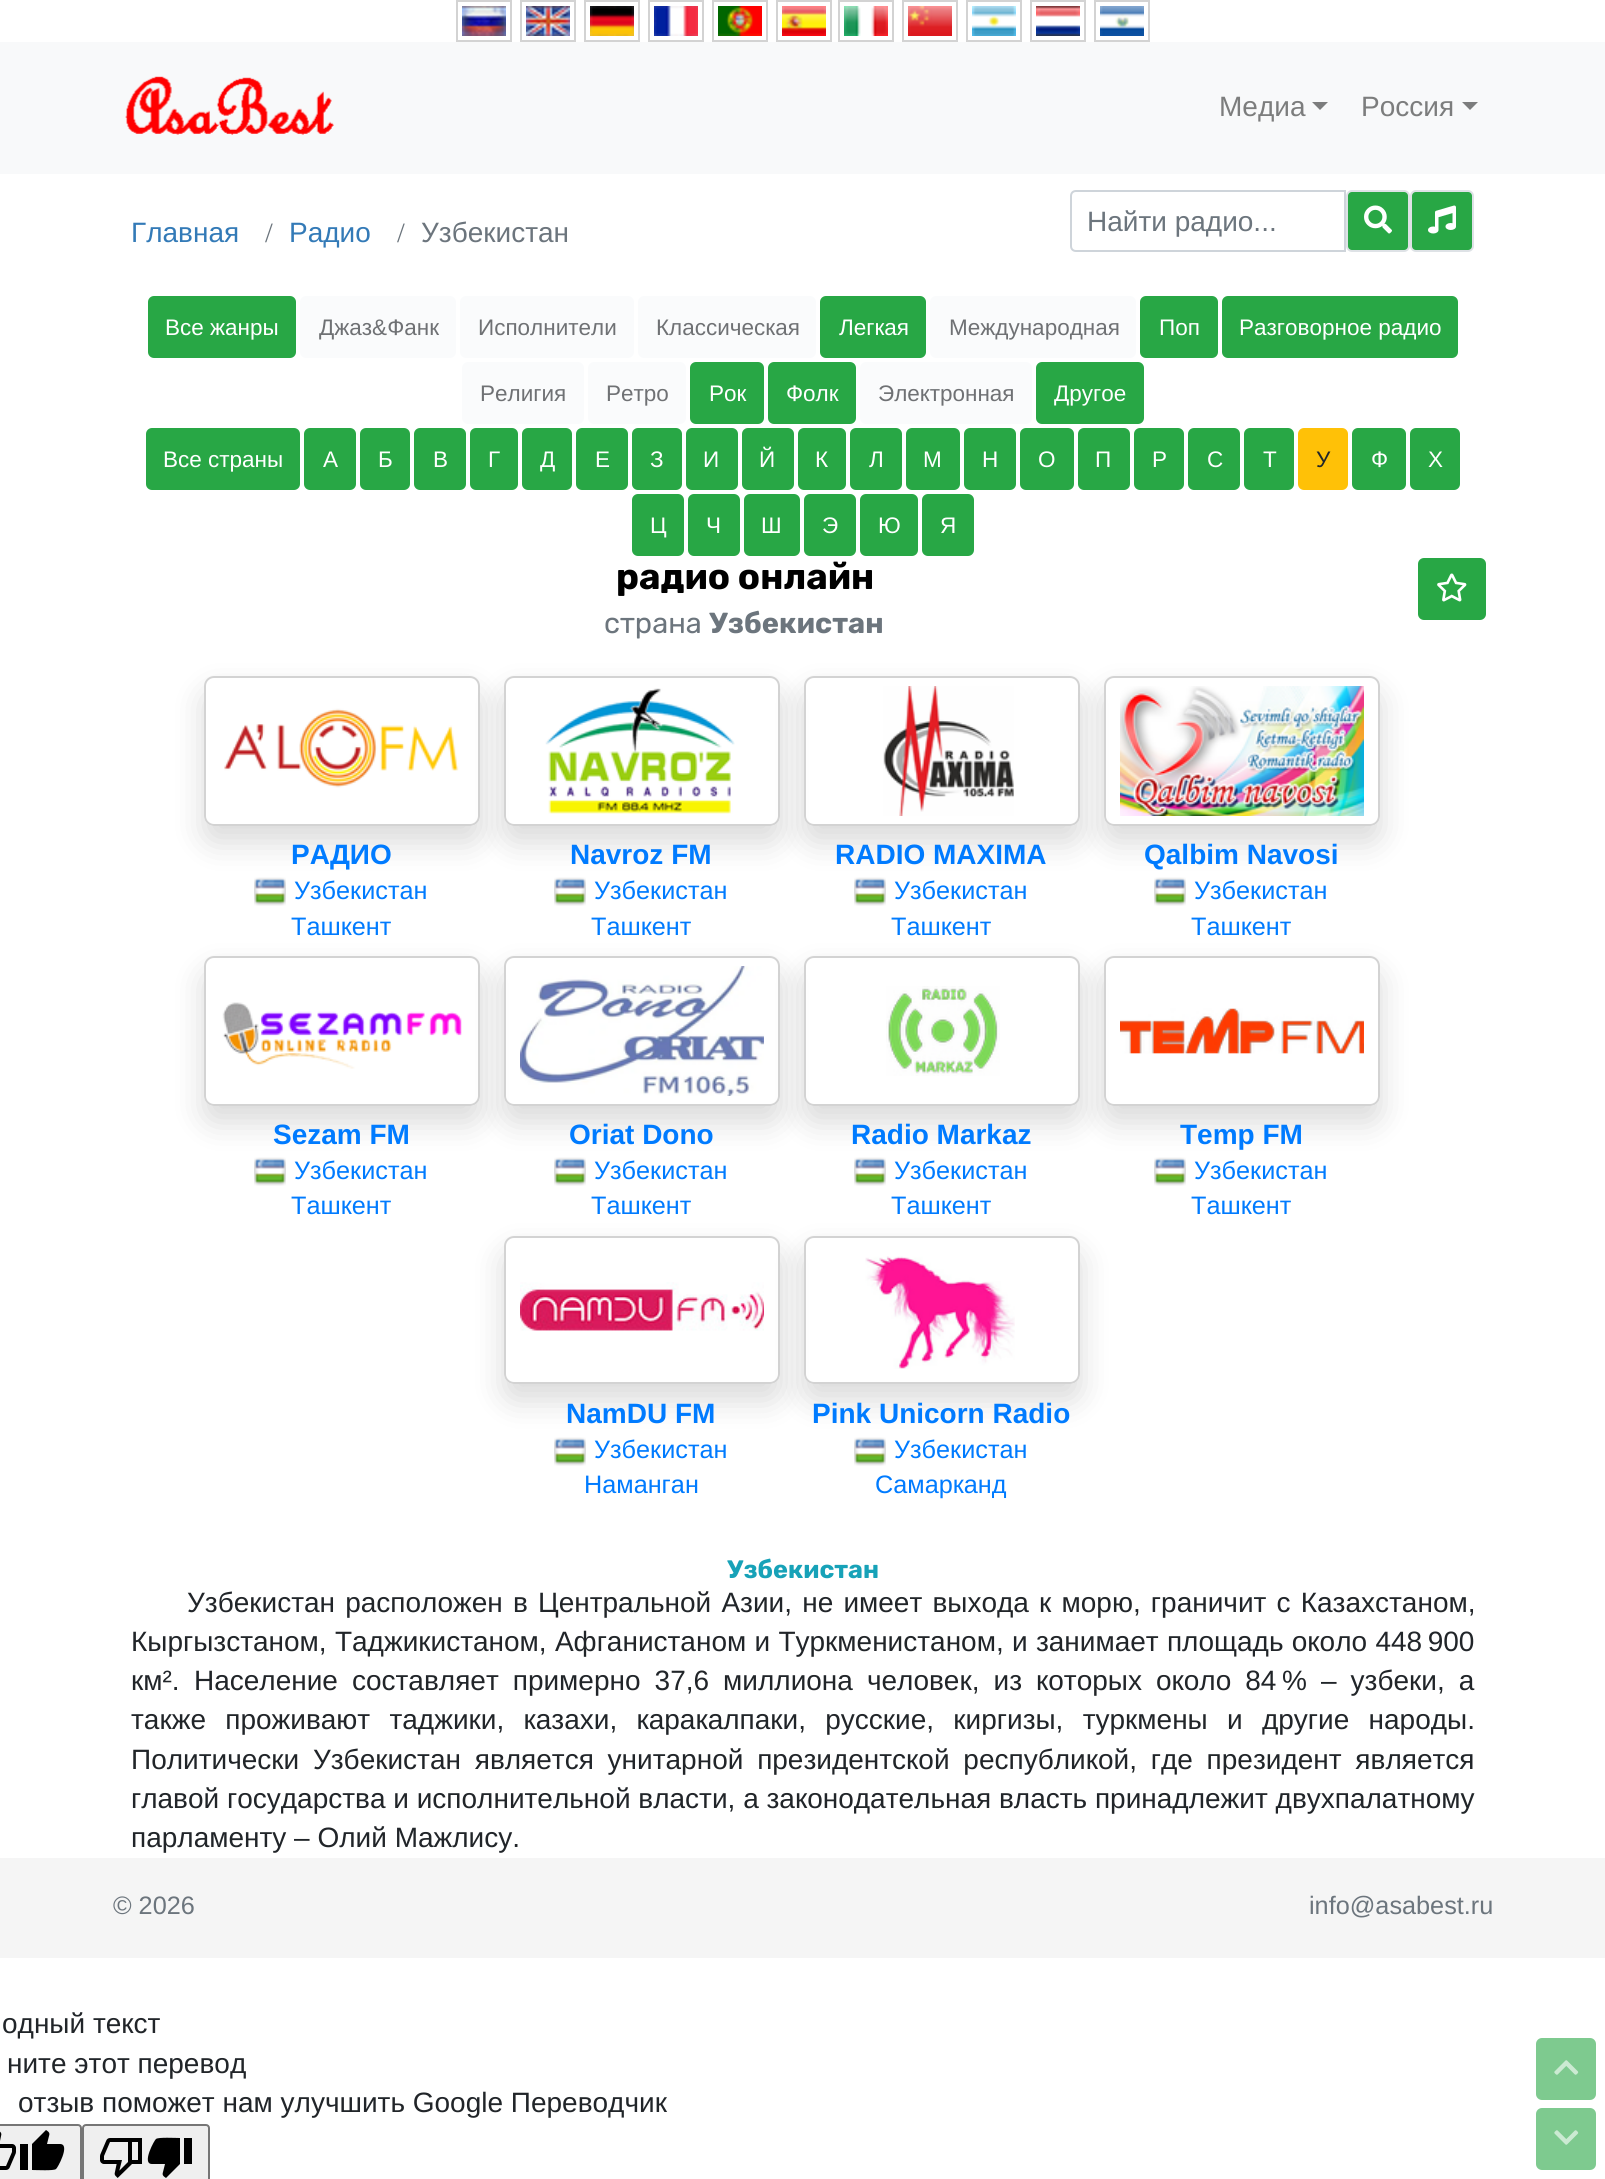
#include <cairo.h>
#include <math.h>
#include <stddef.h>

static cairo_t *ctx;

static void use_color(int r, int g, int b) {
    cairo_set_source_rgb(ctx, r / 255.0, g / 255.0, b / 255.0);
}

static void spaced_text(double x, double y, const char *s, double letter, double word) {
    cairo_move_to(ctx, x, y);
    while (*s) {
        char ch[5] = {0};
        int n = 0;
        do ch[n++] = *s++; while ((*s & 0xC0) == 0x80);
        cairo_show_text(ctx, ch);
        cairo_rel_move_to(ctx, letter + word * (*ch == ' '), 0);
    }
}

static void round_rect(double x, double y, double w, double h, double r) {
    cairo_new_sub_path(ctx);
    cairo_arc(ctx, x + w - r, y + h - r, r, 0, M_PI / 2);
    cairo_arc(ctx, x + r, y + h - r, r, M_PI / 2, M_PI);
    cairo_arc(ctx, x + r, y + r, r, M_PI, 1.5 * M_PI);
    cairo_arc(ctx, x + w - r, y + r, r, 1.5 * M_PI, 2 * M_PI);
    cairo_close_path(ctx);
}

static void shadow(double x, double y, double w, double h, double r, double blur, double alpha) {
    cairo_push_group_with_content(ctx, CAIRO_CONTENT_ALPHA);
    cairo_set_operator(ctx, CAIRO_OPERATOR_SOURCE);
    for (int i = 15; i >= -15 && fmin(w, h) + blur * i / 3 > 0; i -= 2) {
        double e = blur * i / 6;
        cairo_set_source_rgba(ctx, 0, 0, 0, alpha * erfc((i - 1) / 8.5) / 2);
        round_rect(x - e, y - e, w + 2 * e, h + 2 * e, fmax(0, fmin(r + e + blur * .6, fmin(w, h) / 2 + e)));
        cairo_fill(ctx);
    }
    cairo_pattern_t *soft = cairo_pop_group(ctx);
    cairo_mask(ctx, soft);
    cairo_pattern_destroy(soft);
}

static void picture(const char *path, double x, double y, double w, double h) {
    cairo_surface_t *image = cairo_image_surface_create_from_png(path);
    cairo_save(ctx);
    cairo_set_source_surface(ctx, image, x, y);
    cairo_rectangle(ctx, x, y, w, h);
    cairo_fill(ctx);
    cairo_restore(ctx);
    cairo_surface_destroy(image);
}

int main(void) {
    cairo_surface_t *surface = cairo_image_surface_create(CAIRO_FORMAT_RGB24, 1605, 2179);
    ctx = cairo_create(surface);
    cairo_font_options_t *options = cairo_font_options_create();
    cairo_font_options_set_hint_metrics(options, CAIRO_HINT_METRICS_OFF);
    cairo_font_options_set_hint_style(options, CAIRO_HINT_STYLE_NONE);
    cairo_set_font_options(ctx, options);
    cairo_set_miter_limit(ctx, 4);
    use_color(255, 255, 255);
    cairo_paint(ctx);
    cairo_rectangle(ctx, 457, 1, 54, 40);
    use_color(211, 211, 211);
    cairo_stroke(ctx);
    cairo_rectangle(ctx, 521, 1, 54, 40);
    cairo_stroke(ctx);
    cairo_rectangle(ctx, 585, 1, 54, 40);
    cairo_stroke(ctx);
    cairo_rectangle(ctx, 649, 1, 54, 40);
    cairo_stroke(ctx);
    cairo_rectangle(ctx, 713, 1, 54, 40);
    cairo_stroke(ctx);
    cairo_rectangle(ctx, 777, 1, 54, 40);
    cairo_stroke(ctx);
    cairo_rectangle(ctx, 839, 1, 54, 40);
    cairo_stroke(ctx);
    cairo_rectangle(ctx, 903, 1, 54, 40);
    cairo_stroke(ctx);
    cairo_rectangle(ctx, 967, 1, 54, 40);
    cairo_stroke(ctx);
    cairo_rectangle(ctx, 1031, 1, 54, 40);
    cairo_stroke(ctx);
    cairo_rectangle(ctx, 1095, 1, 54, 40);
    cairo_stroke(ctx);
    picture("img1.png", 462, 6, 44, 30);
    picture("img2.png", 526, 6, 44, 30);
    picture("img3.png", 590, 6, 44, 30);
    picture("img4.png", 654, 6, 44, 30);
    picture("img5.png", 718, 6, 44, 30);
    picture("img6.png", 782, 6, 44, 30);
    picture("img7.png", 844, 6, 44, 30);
    picture("img8.png", 908, 6, 44, 30);
    picture("img9.png", 972, 6, 44, 30);
    picture("img10.png", 1036, 6, 44, 30);
    picture("img11.png", 1100, 6, 44, 30);
    use_color(248, 249, 250);
    cairo_rectangle(ctx, 0, 42, 1605, 132);
    cairo_fill(ctx);
    picture("img12.png", 125, 76, 209, 59);
    cairo_select_font_face(ctx, "Liberation Sans", CAIRO_FONT_SLANT_NORMAL, CAIRO_FONT_WEIGHT_NORMAL);
    cairo_set_font_size(ctx, 28);
    use_color(124, 125, 125);
    cairo_move_to(ctx, 1219, 116);
    cairo_show_text(ctx, "Медиа");
    cairo_new_path(ctx);
    cairo_move_to(ctx, 1312, 102);
    cairo_line_to(ctx, 1328, 102);
    cairo_line_to(ctx, 1320, 110);
    cairo_close_path(ctx);
    cairo_fill(ctx);
    cairo_move_to(ctx, 1361, 116);
    cairo_show_text(ctx, "Россия");
    cairo_new_path(ctx);
    cairo_move_to(ctx, 1462, 102);
    cairo_line_to(ctx, 1478, 102);
    cairo_line_to(ctx, 1470, 110);
    cairo_close_path(ctx);
    cairo_fill(ctx);
    use_color(51, 122, 183);
    cairo_move_to(ctx, 131, 242);
    cairo_show_text(ctx, "Главная");
    cairo_select_font_face(ctx, "Liberation Serif", CAIRO_FONT_SLANT_NORMAL, CAIRO_FONT_WEIGHT_NORMAL);
    use_color(108, 117, 125);
    cairo_move_to(ctx, 265, 242);
    cairo_show_text(ctx, "/");
    cairo_select_font_face(ctx, "Liberation Sans", CAIRO_FONT_SLANT_NORMAL, CAIRO_FONT_WEIGHT_NORMAL);
    use_color(51, 122, 183);
    cairo_move_to(ctx, 289, 242);
    cairo_show_text(ctx, "Радио");
    cairo_select_font_face(ctx, "Liberation Serif", CAIRO_FONT_SLANT_NORMAL, CAIRO_FONT_WEIGHT_NORMAL);
    use_color(108, 117, 125);
    cairo_move_to(ctx, 397, 242);
    cairo_show_text(ctx, "/");
    cairo_select_font_face(ctx, "Liberation Sans", CAIRO_FONT_SLANT_NORMAL, CAIRO_FONT_WEIGHT_NORMAL);
    cairo_move_to(ctx, 421, 242);
    cairo_show_text(ctx, "Узбекистан");
    cairo_new_path(ctx);
    cairo_move_to(ctx, 1076, 191);
    cairo_line_to(ctx, 1345, 191);
    cairo_line_to(ctx, 1345, 251);
    cairo_line_to(ctx, 1076, 251);
    cairo_curve_to(ctx, 1073, 251, 1071, 249, 1071, 246);
    cairo_line_to(ctx, 1071, 196);
    cairo_curve_to(ctx, 1071, 193, 1073, 191, 1076, 191);
    cairo_close_path(ctx);
    use_color(206, 212, 218);
    cairo_stroke(ctx);
    use_color(108, 117, 125);
    cairo_move_to(ctx, 1087, 231);
    cairo_show_text(ctx, "Найти радио...");
    use_color(40, 167, 69);
    round_rect(1347, 191, 62, 60, 5);
    cairo_fill_preserve(ctx);
    use_color(222, 226, 230);
    cairo_stroke(ctx);
    picture("img13.png", 1364, 205, 28, 29);
    use_color(40, 167, 69);
    round_rect(1411, 191, 62, 60, 5);
    cairo_fill_preserve(ctx);
    use_color(222, 226, 230);
    cairo_stroke(ctx);
    picture("img14.png", 1428, 205, 28, 29);
    use_color(40, 167, 69);
    round_rect(149, 297, 146, 60, 5);
    cairo_fill_preserve(ctx);
    cairo_stroke(ctx);
    cairo_set_font_size(ctx, 22.5);
    use_color(255, 255, 255);
    cairo_move_to(ctx, 165, 335);
    cairo_show_text(ctx, "Все жанры");
    use_color(250, 251, 252);
    round_rect(300, 296, 156, 62, 6);
    cairo_fill(ctx);
    use_color(111, 113, 116);
    cairo_move_to(ctx, 319, 335);
    cairo_show_text(ctx, "Джаз&Фанк");
    use_color(250, 251, 252);
    round_rect(460, 296, 174, 62, 6);
    cairo_fill(ctx);
    use_color(111, 113, 116);
    cairo_move_to(ctx, 478, 335);
    cairo_show_text(ctx, "Исполнители");
    use_color(250, 251, 252);
    round_rect(638, 296, 178, 62, 6);
    cairo_fill(ctx);
    use_color(111, 113, 116);
    cairo_move_to(ctx, 656, 335);
    cairo_show_text(ctx, "Классическая");
    use_color(40, 167, 69);
    round_rect(821, 297, 104, 60, 5);
    cairo_fill_preserve(ctx);
    cairo_stroke(ctx);
    use_color(255, 255, 255);
    cairo_move_to(ctx, 839, 335);
    cairo_show_text(ctx, "Легкая");
    use_color(250, 251, 252);
    round_rect(930, 296, 206, 62, 6);
    cairo_fill(ctx);
    use_color(111, 113, 116);
    cairo_move_to(ctx, 949, 335);
    cairo_show_text(ctx, "Международная");
    use_color(40, 167, 69);
    round_rect(1141, 297, 76, 60, 5);
    cairo_fill_preserve(ctx);
    cairo_stroke(ctx);
    use_color(255, 255, 255);
    cairo_move_to(ctx, 1159, 335);
    cairo_show_text(ctx, "Поп");
    use_color(40, 167, 69);
    round_rect(1223, 297, 234, 60, 5);
    cairo_fill_preserve(ctx);
    cairo_stroke(ctx);
    use_color(255, 255, 255);
    cairo_move_to(ctx, 1239, 335);
    cairo_show_text(ctx, "Разговорное радио");
    use_color(250, 251, 252);
    round_rect(462, 362, 122, 62, 6);
    cairo_fill(ctx);
    use_color(111, 113, 116);
    cairo_move_to(ctx, 480, 401);
    cairo_show_text(ctx, "Религия");
    use_color(250, 251, 252);
    round_rect(588, 362, 98, 62, 6);
    cairo_fill(ctx);
    use_color(111, 113, 116);
    cairo_move_to(ctx, 606, 401);
    cairo_show_text(ctx, "Ретро");
    use_color(40, 167, 69);
    round_rect(691, 363, 72, 60, 5);
    cairo_fill_preserve(ctx);
    cairo_stroke(ctx);
    use_color(255, 255, 255);
    cairo_move_to(ctx, 709, 401);
    cairo_show_text(ctx, "Рок");
    use_color(40, 167, 69);
    round_rect(769, 363, 86, 60, 5);
    cairo_fill_preserve(ctx);
    cairo_stroke(ctx);
    use_color(255, 255, 255);
    cairo_move_to(ctx, 786, 401);
    cairo_show_text(ctx, "Фолк");
    use_color(250, 251, 252);
    round_rect(860, 362, 172, 62, 6);
    cairo_fill(ctx);
    use_color(111, 113, 116);
    cairo_move_to(ctx, 878, 401);
    cairo_show_text(ctx, "Электронная");
    use_color(40, 167, 69);
    round_rect(1037, 363, 106, 60, 5);
    cairo_fill_preserve(ctx);
    cairo_stroke(ctx);
    use_color(255, 255, 255);
    cairo_move_to(ctx, 1054, 401);
    cairo_show_text(ctx, "Другое");
    use_color(40, 167, 69);
    round_rect(147, 429, 152, 60, 5);
    cairo_fill_preserve(ctx);
    cairo_stroke(ctx);
    use_color(255, 255, 255);
    cairo_move_to(ctx, 163, 467);
    cairo_show_text(ctx, "Все страны");
    use_color(40, 167, 69);
    round_rect(305, 429, 50, 60, 5);
    cairo_fill_preserve(ctx);
    cairo_stroke(ctx);
    use_color(255, 255, 255);
    cairo_move_to(ctx, 323, 467);
    cairo_show_text(ctx, "А");
    use_color(40, 167, 69);
    round_rect(361, 429, 48, 60, 5);
    cairo_fill_preserve(ctx);
    cairo_stroke(ctx);
    use_color(255, 255, 255);
    cairo_move_to(ctx, 378, 467);
    cairo_show_text(ctx, "Б");
    use_color(40, 167, 69);
    round_rect(415, 429, 50, 60, 5);
    cairo_fill_preserve(ctx);
    cairo_stroke(ctx);
    use_color(255, 255, 255);
    cairo_move_to(ctx, 433, 467);
    cairo_show_text(ctx, "В");
    use_color(40, 167, 69);
    round_rect(471, 429, 46, 60, 5);
    cairo_fill_preserve(ctx);
    cairo_stroke(ctx);
    use_color(255, 255, 255);
    cairo_move_to(ctx, 488, 467);
    cairo_show_text(ctx, "Г");
    use_color(40, 167, 69);
    round_rect(523, 429, 48, 60, 5);
    cairo_fill_preserve(ctx);
    cairo_stroke(ctx);
    use_color(255, 255, 255);
    cairo_move_to(ctx, 540, 467);
    cairo_show_text(ctx, "Д");
    use_color(40, 167, 69);
    round_rect(577, 429, 50, 60, 5);
    cairo_fill_preserve(ctx);
    cairo_stroke(ctx);
    use_color(255, 255, 255);
    cairo_move_to(ctx, 595, 467);
    cairo_show_text(ctx, "Е");
    use_color(40, 167, 69);
    round_rect(633, 429, 48, 60, 5);
    cairo_fill_preserve(ctx);
    cairo_stroke(ctx);
    use_color(255, 255, 255);
    cairo_move_to(ctx, 650, 467);
    cairo_show_text(ctx, "З");
    use_color(40, 167, 69);
    round_rect(687, 429, 50, 60, 5);
    cairo_fill_preserve(ctx);
    cairo_stroke(ctx);
    use_color(255, 255, 255);
    cairo_move_to(ctx, 703, 467);
    cairo_show_text(ctx, "И");
    use_color(40, 167, 69);
    round_rect(743, 429, 50, 60, 5);
    cairo_fill_preserve(ctx);
    cairo_stroke(ctx);
    use_color(255, 255, 255);
    cairo_move_to(ctx, 759, 467);
    cairo_show_text(ctx, "Й");
    use_color(40, 167, 69);
    round_rect(799, 429, 46, 60, 5);
    cairo_fill_preserve(ctx);
    cairo_stroke(ctx);
    use_color(255, 255, 255);
    cairo_move_to(ctx, 815, 467);
    cairo_show_text(ctx, "К");
    use_color(40, 167, 69);
    round_rect(851, 429, 50, 60, 5);
    cairo_fill_preserve(ctx);
    cairo_stroke(ctx);
    use_color(255, 255, 255);
    cairo_move_to(ctx, 869, 467);
    cairo_show_text(ctx, "Л");
    use_color(40, 167, 69);
    round_rect(907, 429, 52, 60, 5);
    cairo_fill_preserve(ctx);
    cairo_stroke(ctx);
    use_color(255, 255, 255);
    cairo_move_to(ctx, 923, 467);
    cairo_show_text(ctx, "М");
    use_color(40, 167, 69);
    round_rect(965, 429, 50, 60, 5);
    cairo_fill_preserve(ctx);
    cairo_stroke(ctx);
    use_color(255, 255, 255);
    cairo_move_to(ctx, 982, 467);
    cairo_show_text(ctx, "Н");
    use_color(40, 167, 69);
    round_rect(1021, 429, 52, 60, 5);
    cairo_fill_preserve(ctx);
    cairo_stroke(ctx);
    use_color(255, 255, 255);
    cairo_move_to(ctx, 1038, 467);
    cairo_show_text(ctx, "О");
    use_color(40, 167, 69);
    round_rect(1079, 429, 50, 60, 5);
    cairo_fill_preserve(ctx);
    cairo_stroke(ctx);
    use_color(255, 255, 255);
    cairo_move_to(ctx, 1095, 467);
    cairo_show_text(ctx, "П");
    use_color(40, 167, 69);
    round_rect(1135, 429, 48, 60, 5);
    cairo_fill_preserve(ctx);
    cairo_stroke(ctx);
    use_color(255, 255, 255);
    cairo_move_to(ctx, 1152, 467);
    cairo_show_text(ctx, "Р");
    use_color(40, 167, 69);
    round_rect(1189, 429, 50, 60, 5);
    cairo_fill_preserve(ctx);
    cairo_stroke(ctx);
    use_color(255, 255, 255);
    cairo_move_to(ctx, 1207, 467);
    cairo_show_text(ctx, "С");
    use_color(40, 167, 69);
    round_rect(1245, 429, 48, 60, 5);
    cairo_fill_preserve(ctx);
    cairo_stroke(ctx);
    use_color(255, 255, 255);
    cairo_move_to(ctx, 1263, 467);
    cairo_show_text(ctx, "Т");
    use_color(255, 193, 7);
    round_rect(1299, 429, 48, 60, 5);
    cairo_fill_preserve(ctx);
    cairo_stroke(ctx);
    use_color(33, 37, 41);
    cairo_move_to(ctx, 1316, 467);
    cairo_show_text(ctx, "У");
    use_color(40, 167, 69);
    round_rect(1353, 429, 52, 60, 5);
    cairo_fill_preserve(ctx);
    cairo_stroke(ctx);
    use_color(255, 255, 255);
    cairo_move_to(ctx, 1371, 467);
    cairo_show_text(ctx, "Ф");
    use_color(40, 167, 69);
    round_rect(1411, 429, 48, 60, 5);
    cairo_fill_preserve(ctx);
    cairo_stroke(ctx);
    use_color(255, 255, 255);
    cairo_move_to(ctx, 1428, 467);
    cairo_show_text(ctx, "Х");
    use_color(40, 167, 69);
    round_rect(633, 495, 50, 60, 5);
    cairo_fill_preserve(ctx);
    cairo_stroke(ctx);
    use_color(255, 255, 255);
    cairo_move_to(ctx, 650, 533);
    cairo_show_text(ctx, "Ц");
    use_color(40, 167, 69);
    round_rect(689, 495, 50, 60, 5);
    cairo_fill_preserve(ctx);
    cairo_stroke(ctx);
    use_color(255, 255, 255);
    cairo_move_to(ctx, 706, 533);
    cairo_show_text(ctx, "Ч");
    use_color(40, 167, 69);
    round_rect(745, 495, 54, 60, 5);
    cairo_fill_preserve(ctx);
    cairo_stroke(ctx);
    use_color(255, 255, 255);
    cairo_move_to(ctx, 761, 533);
    cairo_show_text(ctx, "Ш");
    use_color(40, 167, 69);
    round_rect(805, 495, 50, 60, 5);
    cairo_fill_preserve(ctx);
    cairo_stroke(ctx);
    use_color(255, 255, 255);
    cairo_move_to(ctx, 822, 533);
    cairo_show_text(ctx, "Э");
    use_color(40, 167, 69);
    round_rect(861, 495, 56, 60, 5);
    cairo_fill_preserve(ctx);
    cairo_stroke(ctx);
    use_color(255, 255, 255);
    cairo_move_to(ctx, 878, 533);
    cairo_show_text(ctx, "Ю");
    use_color(40, 167, 69);
    round_rect(923, 495, 50, 60, 5);
    cairo_fill_preserve(ctx);
    cairo_stroke(ctx);
    use_color(255, 255, 255);
    cairo_move_to(ctx, 940, 533);
    cairo_show_text(ctx, "Я");
    cairo_select_font_face(ctx, "Rubik", CAIRO_FONT_SLANT_NORMAL, CAIRO_FONT_WEIGHT_BOLD);
    cairo_set_font_size(ctx, 36.5);
    use_color(0, 0, 0);
    cairo_move_to(ctx, 616, 589);
    cairo_show_text(ctx, "радио онлайн");
    cairo_select_font_face(ctx, "Rubik", CAIRO_FONT_SLANT_NORMAL, CAIRO_FONT_WEIGHT_NORMAL);
    cairo_set_font_size(ctx, 29);
    use_color(108, 117, 125);
    cairo_move_to(ctx, 604, 633);
    cairo_show_text(ctx, "страна");
    cairo_select_font_face(ctx, "Rubik", CAIRO_FONT_SLANT_NORMAL, CAIRO_FONT_WEIGHT_BOLD);
    cairo_move_to(ctx, 709, 633);
    cairo_show_text(ctx, "Узбекистан");
    use_color(40, 167, 69);
    round_rect(1419, 559, 66, 60, 5);
    cairo_fill_preserve(ctx);
    cairo_stroke(ctx);
    picture("img15.png", 1437, 573, 30, 29);
    picture("img17.png", 254, 877, 32, 29);
    cairo_save(ctx);
    cairo_set_fill_rule(ctx, CAIRO_FILL_RULE_EVEN_ODD);
    cairo_new_path(ctx);
    cairo_move_to(ctx, 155, 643);
    cairo_line_to(ctx, 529, 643);
    cairo_line_to(ctx, 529, 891);
    cairo_line_to(ctx, 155, 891);
    cairo_close_path(ctx);
    cairo_move_to(ctx, 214, 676);
    cairo_line_to(ctx, 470, 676);
    cairo_curve_to(ctx, 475.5, 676, 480, 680.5, 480, 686);
    cairo_line_to(ctx, 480, 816);
    cairo_curve_to(ctx, 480, 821.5, 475.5, 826, 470, 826);
    cairo_line_to(ctx, 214, 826);
    cairo_curve_to(ctx, 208.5, 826, 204, 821.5, 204, 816);
    cairo_line_to(ctx, 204, 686);
    cairo_curve_to(ctx, 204, 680.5, 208.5, 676, 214, 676);
    cairo_close_path(ctx);
    cairo_clip(ctx);
    use_color(0, 0, 0);
    shadow(204, 692, 276, 150, 10, 16, 0.15);
    cairo_restore(ctx);
    round_rect(205, 677, 274, 148, 9);
    use_color(211, 211, 211);
    cairo_stroke(ctx);
    picture("img16.png", 224, 708, 235, 80);
    cairo_select_font_face(ctx, "Liberation Sans", CAIRO_FONT_SLANT_NORMAL, CAIRO_FONT_WEIGHT_BOLD);
    cairo_set_font_size(ctx, 28);
    use_color(0, 123, 255);
    cairo_move_to(ctx, 291, 864);
    cairo_show_text(ctx, "РАДИО");
    cairo_select_font_face(ctx, "Liberation Sans", CAIRO_FONT_SLANT_NORMAL, CAIRO_FONT_WEIGHT_NORMAL);
    cairo_set_font_size(ctx, 25.25);
    cairo_move_to(ctx, 294, 899);
    cairo_show_text(ctx, "Узбекистан");
    cairo_move_to(ctx, 291, 935);
    cairo_show_text(ctx, "Ташкент");
    picture("img17.png", 554, 877, 32, 29);
    cairo_save(ctx);
    cairo_set_fill_rule(ctx, CAIRO_FILL_RULE_EVEN_ODD);
    cairo_new_path(ctx);
    cairo_move_to(ctx, 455, 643);
    cairo_line_to(ctx, 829, 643);
    cairo_line_to(ctx, 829, 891);
    cairo_line_to(ctx, 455, 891);
    cairo_close_path(ctx);
    cairo_move_to(ctx, 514, 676);
    cairo_line_to(ctx, 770, 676);
    cairo_curve_to(ctx, 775.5, 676, 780, 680.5, 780, 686);
    cairo_line_to(ctx, 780, 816);
    cairo_curve_to(ctx, 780, 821.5, 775.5, 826, 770, 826);
    cairo_line_to(ctx, 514, 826);
    cairo_curve_to(ctx, 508.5, 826, 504, 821.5, 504, 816);
    cairo_line_to(ctx, 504, 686);
    cairo_curve_to(ctx, 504, 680.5, 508.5, 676, 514, 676);
    cairo_close_path(ctx);
    cairo_clip(ctx);
    use_color(0, 0, 0);
    shadow(504, 692, 276, 150, 10, 16, 0.15);
    cairo_restore(ctx);
    round_rect(505, 677, 274, 148, 9);
    use_color(211, 211, 211);
    cairo_stroke(ctx);
    picture("img18.png", 545, 688, 190, 126);
    cairo_select_font_face(ctx, "Liberation Sans", CAIRO_FONT_SLANT_NORMAL, CAIRO_FONT_WEIGHT_BOLD);
    cairo_set_font_size(ctx, 28);
    use_color(0, 123, 255);
    cairo_move_to(ctx, 570, 864);
    cairo_show_text(ctx, "Navroz FM");
    cairo_select_font_face(ctx, "Liberation Sans", CAIRO_FONT_SLANT_NORMAL, CAIRO_FONT_WEIGHT_NORMAL);
    cairo_set_font_size(ctx, 25.25);
    cairo_move_to(ctx, 594, 899);
    cairo_show_text(ctx, "Узбекистан");
    cairo_move_to(ctx, 591, 935);
    cairo_show_text(ctx, "Ташкент");
    picture("img17.png", 854, 877, 32, 29);
    cairo_save(ctx);
    cairo_set_fill_rule(ctx, CAIRO_FILL_RULE_EVEN_ODD);
    cairo_new_path(ctx);
    cairo_move_to(ctx, 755, 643);
    cairo_line_to(ctx, 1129, 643);
    cairo_line_to(ctx, 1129, 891);
    cairo_line_to(ctx, 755, 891);
    cairo_close_path(ctx);
    cairo_move_to(ctx, 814, 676);
    cairo_line_to(ctx, 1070, 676);
    cairo_curve_to(ctx, 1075.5, 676, 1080, 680.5, 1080, 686);
    cairo_line_to(ctx, 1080, 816);
    cairo_curve_to(ctx, 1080, 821.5, 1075.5, 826, 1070, 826);
    cairo_line_to(ctx, 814, 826);
    cairo_curve_to(ctx, 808.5, 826, 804, 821.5, 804, 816);
    cairo_line_to(ctx, 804, 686);
    cairo_curve_to(ctx, 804, 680.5, 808.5, 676, 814, 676);
    cairo_close_path(ctx);
    cairo_clip(ctx);
    use_color(0, 0, 0);
    shadow(804, 692, 276, 150, 10, 16, 0.15);
    cairo_restore(ctx);
    round_rect(805, 677, 274, 148, 9);
    use_color(211, 211, 211);
    cairo_stroke(ctx);
    picture("img19.png", 883, 686, 131, 130);
    cairo_select_font_face(ctx, "Liberation Sans", CAIRO_FONT_SLANT_NORMAL, CAIRO_FONT_WEIGHT_BOLD);
    cairo_set_font_size(ctx, 28);
    use_color(0, 123, 255);
    cairo_move_to(ctx, 835, 864);
    cairo_show_text(ctx, "RADIO MAXIMA");
    cairo_select_font_face(ctx, "Liberation Sans", CAIRO_FONT_SLANT_NORMAL, CAIRO_FONT_WEIGHT_NORMAL);
    cairo_set_font_size(ctx, 25.25);
    cairo_move_to(ctx, 894, 899);
    cairo_show_text(ctx, "Узбекистан");
    cairo_move_to(ctx, 891, 935);
    cairo_show_text(ctx, "Ташкент");
    picture("img17.png", 1154, 877, 32, 29);
    cairo_save(ctx);
    cairo_set_fill_rule(ctx, CAIRO_FILL_RULE_EVEN_ODD);
    cairo_new_path(ctx);
    cairo_move_to(ctx, 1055, 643);
    cairo_line_to(ctx, 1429, 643);
    cairo_line_to(ctx, 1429, 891);
    cairo_line_to(ctx, 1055, 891);
    cairo_close_path(ctx);
    cairo_move_to(ctx, 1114, 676);
    cairo_line_to(ctx, 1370, 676);
    cairo_curve_to(ctx, 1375.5, 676, 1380, 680.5, 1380, 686);
    cairo_line_to(ctx, 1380, 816);
    cairo_curve_to(ctx, 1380, 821.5, 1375.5, 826, 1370, 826);
    cairo_line_to(ctx, 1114, 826);
    cairo_curve_to(ctx, 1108.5, 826, 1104, 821.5, 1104, 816);
    cairo_line_to(ctx, 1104, 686);
    cairo_curve_to(ctx, 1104, 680.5, 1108.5, 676, 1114, 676);
    cairo_close_path(ctx);
    cairo_clip(ctx);
    use_color(0, 0, 0);
    shadow(1104, 692, 276, 150, 10, 16, 0.15);
    cairo_restore(ctx);
    round_rect(1105, 677, 274, 148, 9);
    use_color(211, 211, 211);
    cairo_stroke(ctx);
    picture("img20.png", 1120, 686, 244, 130);
    cairo_select_font_face(ctx, "Liberation Sans", CAIRO_FONT_SLANT_NORMAL, CAIRO_FONT_WEIGHT_BOLD);
    cairo_set_font_size(ctx, 28);
    use_color(0, 123, 255);
    cairo_move_to(ctx, 1144, 864);
    cairo_show_text(ctx, "Qalbim Navosi");
    cairo_select_font_face(ctx, "Liberation Sans", CAIRO_FONT_SLANT_NORMAL, CAIRO_FONT_WEIGHT_NORMAL);
    cairo_set_font_size(ctx, 25.25);
    cairo_move_to(ctx, 1194, 899);
    cairo_show_text(ctx, "Узбекистан");
    cairo_move_to(ctx, 1191, 935);
    cairo_show_text(ctx, "Ташкент");
    picture("img17.png", 254, 1157, 32, 29);
    cairo_save(ctx);
    cairo_set_fill_rule(ctx, CAIRO_FILL_RULE_EVEN_ODD);
    cairo_new_path(ctx);
    cairo_move_to(ctx, 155, 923);
    cairo_line_to(ctx, 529, 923);
    cairo_line_to(ctx, 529, 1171);
    cairo_line_to(ctx, 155, 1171);
    cairo_close_path(ctx);
    cairo_move_to(ctx, 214, 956);
    cairo_line_to(ctx, 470, 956);
    cairo_curve_to(ctx, 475.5, 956, 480, 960.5, 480, 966);
    cairo_line_to(ctx, 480, 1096);
    cairo_curve_to(ctx, 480, 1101.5, 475.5, 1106, 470, 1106);
    cairo_line_to(ctx, 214, 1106);
    cairo_curve_to(ctx, 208.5, 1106, 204, 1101.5, 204, 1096);
    cairo_line_to(ctx, 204, 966);
    cairo_curve_to(ctx, 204, 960.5, 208.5, 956, 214, 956);
    cairo_close_path(ctx);
    cairo_clip(ctx);
    use_color(0, 0, 0);
    shadow(204, 972, 276, 150, 10, 16, 0.15);
    cairo_restore(ctx);
    round_rect(205, 957, 274, 148, 9);
    use_color(211, 211, 211);
    cairo_stroke(ctx);
    picture("img21.png", 222, 1002, 240, 67);
    cairo_select_font_face(ctx, "Liberation Sans", CAIRO_FONT_SLANT_NORMAL, CAIRO_FONT_WEIGHT_BOLD);
    cairo_set_font_size(ctx, 28);
    use_color(0, 123, 255);
    cairo_move_to(ctx, 273, 1144);
    cairo_show_text(ctx, "Sezam FM");
    cairo_select_font_face(ctx, "Liberation Sans", CAIRO_FONT_SLANT_NORMAL, CAIRO_FONT_WEIGHT_NORMAL);
    cairo_set_font_size(ctx, 25.25);
    cairo_move_to(ctx, 294, 1179);
    cairo_show_text(ctx, "Узбекистан");
    cairo_move_to(ctx, 291, 1214);
    cairo_show_text(ctx, "Ташкент");
    picture("img17.png", 554, 1157, 32, 29);
    cairo_save(ctx);
    cairo_set_fill_rule(ctx, CAIRO_FILL_RULE_EVEN_ODD);
    cairo_new_path(ctx);
    cairo_move_to(ctx, 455, 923);
    cairo_line_to(ctx, 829, 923);
    cairo_line_to(ctx, 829, 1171);
    cairo_line_to(ctx, 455, 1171);
    cairo_close_path(ctx);
    cairo_move_to(ctx, 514, 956);
    cairo_line_to(ctx, 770, 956);
    cairo_curve_to(ctx, 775.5, 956, 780, 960.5, 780, 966);
    cairo_line_to(ctx, 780, 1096);
    cairo_curve_to(ctx, 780, 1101.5, 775.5, 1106, 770, 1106);
    cairo_line_to(ctx, 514, 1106);
    cairo_curve_to(ctx, 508.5, 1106, 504, 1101.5, 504, 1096);
    cairo_line_to(ctx, 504, 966);
    cairo_curve_to(ctx, 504, 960.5, 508.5, 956, 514, 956);
    cairo_close_path(ctx);
    cairo_clip(ctx);
    use_color(0, 0, 0);
    shadow(504, 972, 276, 150, 10, 16, 0.15);
    cairo_restore(ctx);
    round_rect(505, 957, 274, 148, 9);
    use_color(211, 211, 211);
    cairo_stroke(ctx);
    picture("img22.png", 520, 966, 244, 130);
    cairo_select_font_face(ctx, "Liberation Sans", CAIRO_FONT_SLANT_NORMAL, CAIRO_FONT_WEIGHT_BOLD);
    cairo_set_font_size(ctx, 28);
    use_color(0, 123, 255);
    cairo_move_to(ctx, 569, 1144);
    cairo_show_text(ctx, "Oriat Dono");
    cairo_select_font_face(ctx, "Liberation Sans", CAIRO_FONT_SLANT_NORMAL, CAIRO_FONT_WEIGHT_NORMAL);
    cairo_set_font_size(ctx, 25.25);
    cairo_move_to(ctx, 594, 1179);
    cairo_show_text(ctx, "Узбекистан");
    cairo_move_to(ctx, 591, 1214);
    cairo_show_text(ctx, "Ташкент");
    picture("img17.png", 854, 1157, 32, 29);
    cairo_save(ctx);
    cairo_set_fill_rule(ctx, CAIRO_FILL_RULE_EVEN_ODD);
    cairo_new_path(ctx);
    cairo_move_to(ctx, 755, 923);
    cairo_line_to(ctx, 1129, 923);
    cairo_line_to(ctx, 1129, 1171);
    cairo_line_to(ctx, 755, 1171);
    cairo_close_path(ctx);
    cairo_move_to(ctx, 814, 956);
    cairo_line_to(ctx, 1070, 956);
    cairo_curve_to(ctx, 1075.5, 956, 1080, 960.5, 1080, 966);
    cairo_line_to(ctx, 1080, 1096);
    cairo_curve_to(ctx, 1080, 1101.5, 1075.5, 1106, 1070, 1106);
    cairo_line_to(ctx, 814, 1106);
    cairo_curve_to(ctx, 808.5, 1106, 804, 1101.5, 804, 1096);
    cairo_line_to(ctx, 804, 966);
    cairo_curve_to(ctx, 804, 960.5, 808.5, 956, 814, 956);
    cairo_close_path(ctx);
    cairo_clip(ctx);
    use_color(0, 0, 0);
    shadow(804, 972, 276, 150, 10, 16, 0.15);
    cairo_restore(ctx);
    round_rect(805, 957, 274, 148, 9);
    use_color(211, 211, 211);
    cairo_stroke(ctx);
    picture("img23.png", 886, 986, 114, 90);
    cairo_select_font_face(ctx, "Liberation Sans", CAIRO_FONT_SLANT_NORMAL, CAIRO_FONT_WEIGHT_BOLD);
    cairo_set_font_size(ctx, 28);
    use_color(0, 123, 255);
    cairo_move_to(ctx, 851, 1144);
    cairo_show_text(ctx, "Radio Markaz");
    cairo_select_font_face(ctx, "Liberation Sans", CAIRO_FONT_SLANT_NORMAL, CAIRO_FONT_WEIGHT_NORMAL);
    cairo_set_font_size(ctx, 25.25);
    cairo_move_to(ctx, 894, 1179);
    cairo_show_text(ctx, "Узбекистан");
    cairo_move_to(ctx, 891, 1214);
    cairo_show_text(ctx, "Ташкент");
    picture("img17.png", 1154, 1157, 32, 29);
    cairo_save(ctx);
    cairo_set_fill_rule(ctx, CAIRO_FILL_RULE_EVEN_ODD);
    cairo_new_path(ctx);
    cairo_move_to(ctx, 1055, 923);
    cairo_line_to(ctx, 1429, 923);
    cairo_line_to(ctx, 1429, 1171);
    cairo_line_to(ctx, 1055, 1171);
    cairo_close_path(ctx);
    cairo_move_to(ctx, 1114, 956);
    cairo_line_to(ctx, 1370, 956);
    cairo_curve_to(ctx, 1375.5, 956, 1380, 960.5, 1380, 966);
    cairo_line_to(ctx, 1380, 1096);
    cairo_curve_to(ctx, 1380, 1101.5, 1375.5, 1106, 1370, 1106);
    cairo_line_to(ctx, 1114, 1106);
    cairo_curve_to(ctx, 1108.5, 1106, 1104, 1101.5, 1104, 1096);
    cairo_line_to(ctx, 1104, 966);
    cairo_curve_to(ctx, 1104, 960.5, 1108.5, 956, 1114, 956);
    cairo_close_path(ctx);
    cairo_clip(ctx);
    use_color(0, 0, 0);
    shadow(1104, 972, 276, 150, 10, 16, 0.15);
    cairo_restore(ctx);
    round_rect(1105, 957, 274, 148, 9);
    use_color(211, 211, 211);
    cairo_stroke(ctx);
    picture("img24.png", 1120, 1008, 244, 46);
    cairo_select_font_face(ctx, "Liberation Sans", CAIRO_FONT_SLANT_NORMAL, CAIRO_FONT_WEIGHT_BOLD);
    cairo_set_font_size(ctx, 28);
    use_color(0, 123, 255);
    cairo_move_to(ctx, 1180, 1144);
    cairo_show_text(ctx, "Temp FM");
    cairo_select_font_face(ctx, "Liberation Sans", CAIRO_FONT_SLANT_NORMAL, CAIRO_FONT_WEIGHT_NORMAL);
    cairo_set_font_size(ctx, 25.25);
    cairo_move_to(ctx, 1194, 1179);
    cairo_show_text(ctx, "Узбекистан");
    cairo_move_to(ctx, 1191, 1214);
    cairo_show_text(ctx, "Ташкент");
    picture("img17.png", 554, 1437, 32, 29);
    cairo_save(ctx);
    cairo_set_fill_rule(ctx, CAIRO_FILL_RULE_EVEN_ODD);
    cairo_new_path(ctx);
    cairo_move_to(ctx, 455, 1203);
    cairo_line_to(ctx, 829, 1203);
    cairo_line_to(ctx, 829, 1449);
    cairo_line_to(ctx, 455, 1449);
    cairo_close_path(ctx);
    cairo_move_to(ctx, 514, 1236);
    cairo_line_to(ctx, 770, 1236);
    cairo_curve_to(ctx, 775.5, 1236, 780, 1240.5, 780, 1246);
    cairo_line_to(ctx, 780, 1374);
    cairo_curve_to(ctx, 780, 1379.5, 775.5, 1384, 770, 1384);
    cairo_line_to(ctx, 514, 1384);
    cairo_curve_to(ctx, 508.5, 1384, 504, 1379.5, 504, 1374);
    cairo_line_to(ctx, 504, 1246);
    cairo_curve_to(ctx, 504, 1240.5, 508.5, 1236, 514, 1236);
    cairo_close_path(ctx);
    cairo_clip(ctx);
    use_color(0, 0, 0);
    shadow(504, 1252, 276, 148, 10, 16, 0.15);
    cairo_restore(ctx);
    round_rect(505, 1237, 274, 146, 9);
    use_color(211, 211, 211);
    cairo_stroke(ctx);
    picture("img25.png", 520, 1282, 244, 49);
    cairo_select_font_face(ctx, "Liberation Sans", CAIRO_FONT_SLANT_NORMAL, CAIRO_FONT_WEIGHT_BOLD);
    cairo_set_font_size(ctx, 28);
    use_color(0, 123, 255);
    cairo_move_to(ctx, 566, 1423);
    cairo_show_text(ctx, "NamDU FM");
    cairo_select_font_face(ctx, "Liberation Sans", CAIRO_FONT_SLANT_NORMAL, CAIRO_FONT_WEIGHT_NORMAL);
    cairo_set_font_size(ctx, 25.25);
    cairo_move_to(ctx, 594, 1458);
    cairo_show_text(ctx, "Узбекистан");
    cairo_move_to(ctx, 584, 1493);
    cairo_show_text(ctx, "Наманган");
    picture("img17.png", 854, 1437, 32, 29);
    cairo_save(ctx);
    cairo_set_fill_rule(ctx, CAIRO_FILL_RULE_EVEN_ODD);
    cairo_new_path(ctx);
    cairo_move_to(ctx, 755, 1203);
    cairo_line_to(ctx, 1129, 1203);
    cairo_line_to(ctx, 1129, 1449);
    cairo_line_to(ctx, 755, 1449);
    cairo_close_path(ctx);
    cairo_move_to(ctx, 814, 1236);
    cairo_line_to(ctx, 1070, 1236);
    cairo_curve_to(ctx, 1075.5, 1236, 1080, 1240.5, 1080, 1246);
    cairo_line_to(ctx, 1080, 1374);
    cairo_curve_to(ctx, 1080, 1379.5, 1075.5, 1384, 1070, 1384);
    cairo_line_to(ctx, 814, 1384);
    cairo_curve_to(ctx, 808.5, 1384, 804, 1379.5, 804, 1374);
    cairo_line_to(ctx, 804, 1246);
    cairo_curve_to(ctx, 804, 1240.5, 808.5, 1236, 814, 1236);
    cairo_close_path(ctx);
    cairo_clip(ctx);
    use_color(0, 0, 0);
    shadow(804, 1252, 276, 148, 10, 16, 0.15);
    cairo_restore(ctx);
    round_rect(805, 1237, 274, 146, 9);
    use_color(211, 211, 211);
    cairo_stroke(ctx);
    picture("img26.png", 865, 1256, 150, 113);
    cairo_select_font_face(ctx, "Liberation Sans", CAIRO_FONT_SLANT_NORMAL, CAIRO_FONT_WEIGHT_BOLD);
    cairo_set_font_size(ctx, 28);
    use_color(0, 123, 255);
    cairo_move_to(ctx, 812, 1423);
    cairo_show_text(ctx, "Pink Unicorn Radio");
    cairo_select_font_face(ctx, "Liberation Sans", CAIRO_FONT_SLANT_NORMAL, CAIRO_FONT_WEIGHT_NORMAL);
    cairo_set_font_size(ctx, 25.25);
    cairo_move_to(ctx, 894, 1458);
    cairo_show_text(ctx, "Узбекистан");
    cairo_move_to(ctx, 875, 1493);
    cairo_show_text(ctx, "Самарканд");
    cairo_select_font_face(ctx, "Rubik", CAIRO_FONT_SLANT_NORMAL, CAIRO_FONT_WEIGHT_BOLD);
    use_color(23, 162, 184);
    cairo_move_to(ctx, 727, 1578);
    cairo_show_text(ctx, "Узбекистан");
    cairo_select_font_face(ctx, "Liberation Sans", CAIRO_FONT_SLANT_NORMAL, CAIRO_FONT_WEIGHT_NORMAL);
    cairo_set_font_size(ctx, 28);
    use_color(33, 37, 41);
    spaced_text(187, 1612, "Узбекистан расположен в Центральной Азии, не имеет выхода к морю, граничит с Казахстаном,", 0, 2.4);
    spaced_text(131, 1651, "Кыргызстаном, Таджикистаном, Афганистаном и Туркменистаном, и занимает площадь около 448 900", 0, 0.5);
    cairo_move_to(ctx, 131, 1690);
    cairo_show_text(ctx, "км².");
    spaced_text(194, 1690, "Население составляет примерно 37,6 миллиона человек, из которых около 84 % – узбеки, а", 0, 6.25);
    spaced_text(131, 1729, "также проживают таджики, казахи, каракалпаки, русские, киргизы, туркмены и другие народы.", 0, 11.5);
    spaced_text(131, 1769, "Политически Узбекистан является унитарной президентской республикой, где президент является", 0, 6);
    cairo_move_to(ctx, 131, 1808);
    cairo_show_text(ctx, "главой государства и исполнительной власти, а законодательная власть принадлежит двухпалатному");
    cairo_move_to(ctx, 131, 1847);
    cairo_show_text(ctx, "парламенту – Олий Мажлису.");
    use_color(126, 202, 143);
    round_rect(1537, 2039, 58, 60, 5);
    cairo_fill_preserve(ctx);
    cairo_stroke(ctx);
    picture("img27.png", 1554, 2060, 25, 15);
    round_rect(1537, 2109, 58, 60, 5);
    cairo_fill_preserve(ctx);
    cairo_stroke(ctx);
    picture("img28.png", 1554, 2130, 25, 15);
    use_color(245, 245, 245);
    cairo_rectangle(ctx, 0, 1858, 1605, 100);
    cairo_fill(ctx);
    cairo_set_font_size(ctx, 25.25);
    use_color(108, 117, 125);
    cairo_move_to(ctx, 113, 1914);
    cairo_show_text(ctx, "© 2026");
    cairo_move_to(ctx, 1309, 1914);
    cairo_show_text(ctx, "info@asabest.ru");
    cairo_set_font_size(ctx, 28);
    use_color(33, 37, 41);
    cairo_move_to(ctx, 2, 2033);
    cairo_show_text(ctx, "одный текст");
    cairo_move_to(ctx, 7, 2073);
    cairo_show_text(ctx, "ните этот перевод");
    cairo_move_to(ctx, 18, 2112);
    cairo_show_text(ctx, "отзыв поможет нам улучшить Google Переводчик");
    use_color(239, 239, 239);
    round_rect(-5, 2125, 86, 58, 3);
    cairo_fill_preserve(ctx);
    use_color(118, 118, 118);
    cairo_stroke(ctx);
    picture("img29.png", 0, 2131, 16, 39);
    use_color(0, 0, 0);
    cairo_new_path(ctx);
    cairo_move_to(ctx, 60, 2144);
    cairo_line_to(ctx, 47, 2144);
    cairo_line_to(ctx, 49, 2136);
    cairo_curve_to(ctx, 50, 2133, 49, 2132, 46, 2130);
    cairo_line_to(ctx, 32, 2144);
    cairo_line_to(ctx, 32, 2170);
    cairo_curve_to(ctx, 36, 2170, 54, 2171, 56, 2169);
    cairo_curve_to(ctx, 57, 2169, 71, 2144, 60, 2144);
    cairo_close_path(ctx);
    cairo_move_to(ctx, 28, 2144);
    cairo_line_to(ctx, 20, 2144);
    cairo_line_to(ctx, 20, 2170);
    cairo_line_to(ctx, 28, 2170);
    cairo_close_path(ctx);
    cairo_fill(ctx);
    use_color(239, 239, 239);
    round_rect(83, 2125, 126, 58, 3);
    cairo_fill_preserve(ctx);
    use_color(118, 118, 118);
    cairo_stroke(ctx);
    picture("img30.png", 100, 2138, 42, 40);
    use_color(0, 0, 0);
    cairo_new_path(ctx);
    cairo_move_to(ctx, 152, 2164);
    cairo_line_to(ctx, 165, 2164);
    cairo_line_to(ctx, 163, 2172);
    cairo_curve_to(ctx, 162, 2175, 163, 2176, 166, 2178);
    cairo_line_to(ctx, 180, 2164);
    cairo_line_to(ctx, 180, 2138);
    cairo_curve_to(ctx, 176, 2138, 158, 2137, 156, 2139);
    cairo_curve_to(ctx, 155, 2139, 141, 2164, 152, 2164);
    cairo_close_path(ctx);
    cairo_move_to(ctx, 184, 2164);
    cairo_line_to(ctx, 192, 2164);
    cairo_line_to(ctx, 192, 2138);
    cairo_line_to(ctx, 184, 2138);
    cairo_close_path(ctx);
    cairo_fill(ctx);
    cairo_surface_write_to_png(surface, "result.png");
    cairo_font_options_destroy(options);
    cairo_destroy(ctx);
    cairo_surface_destroy(surface);
    return 0;
}
